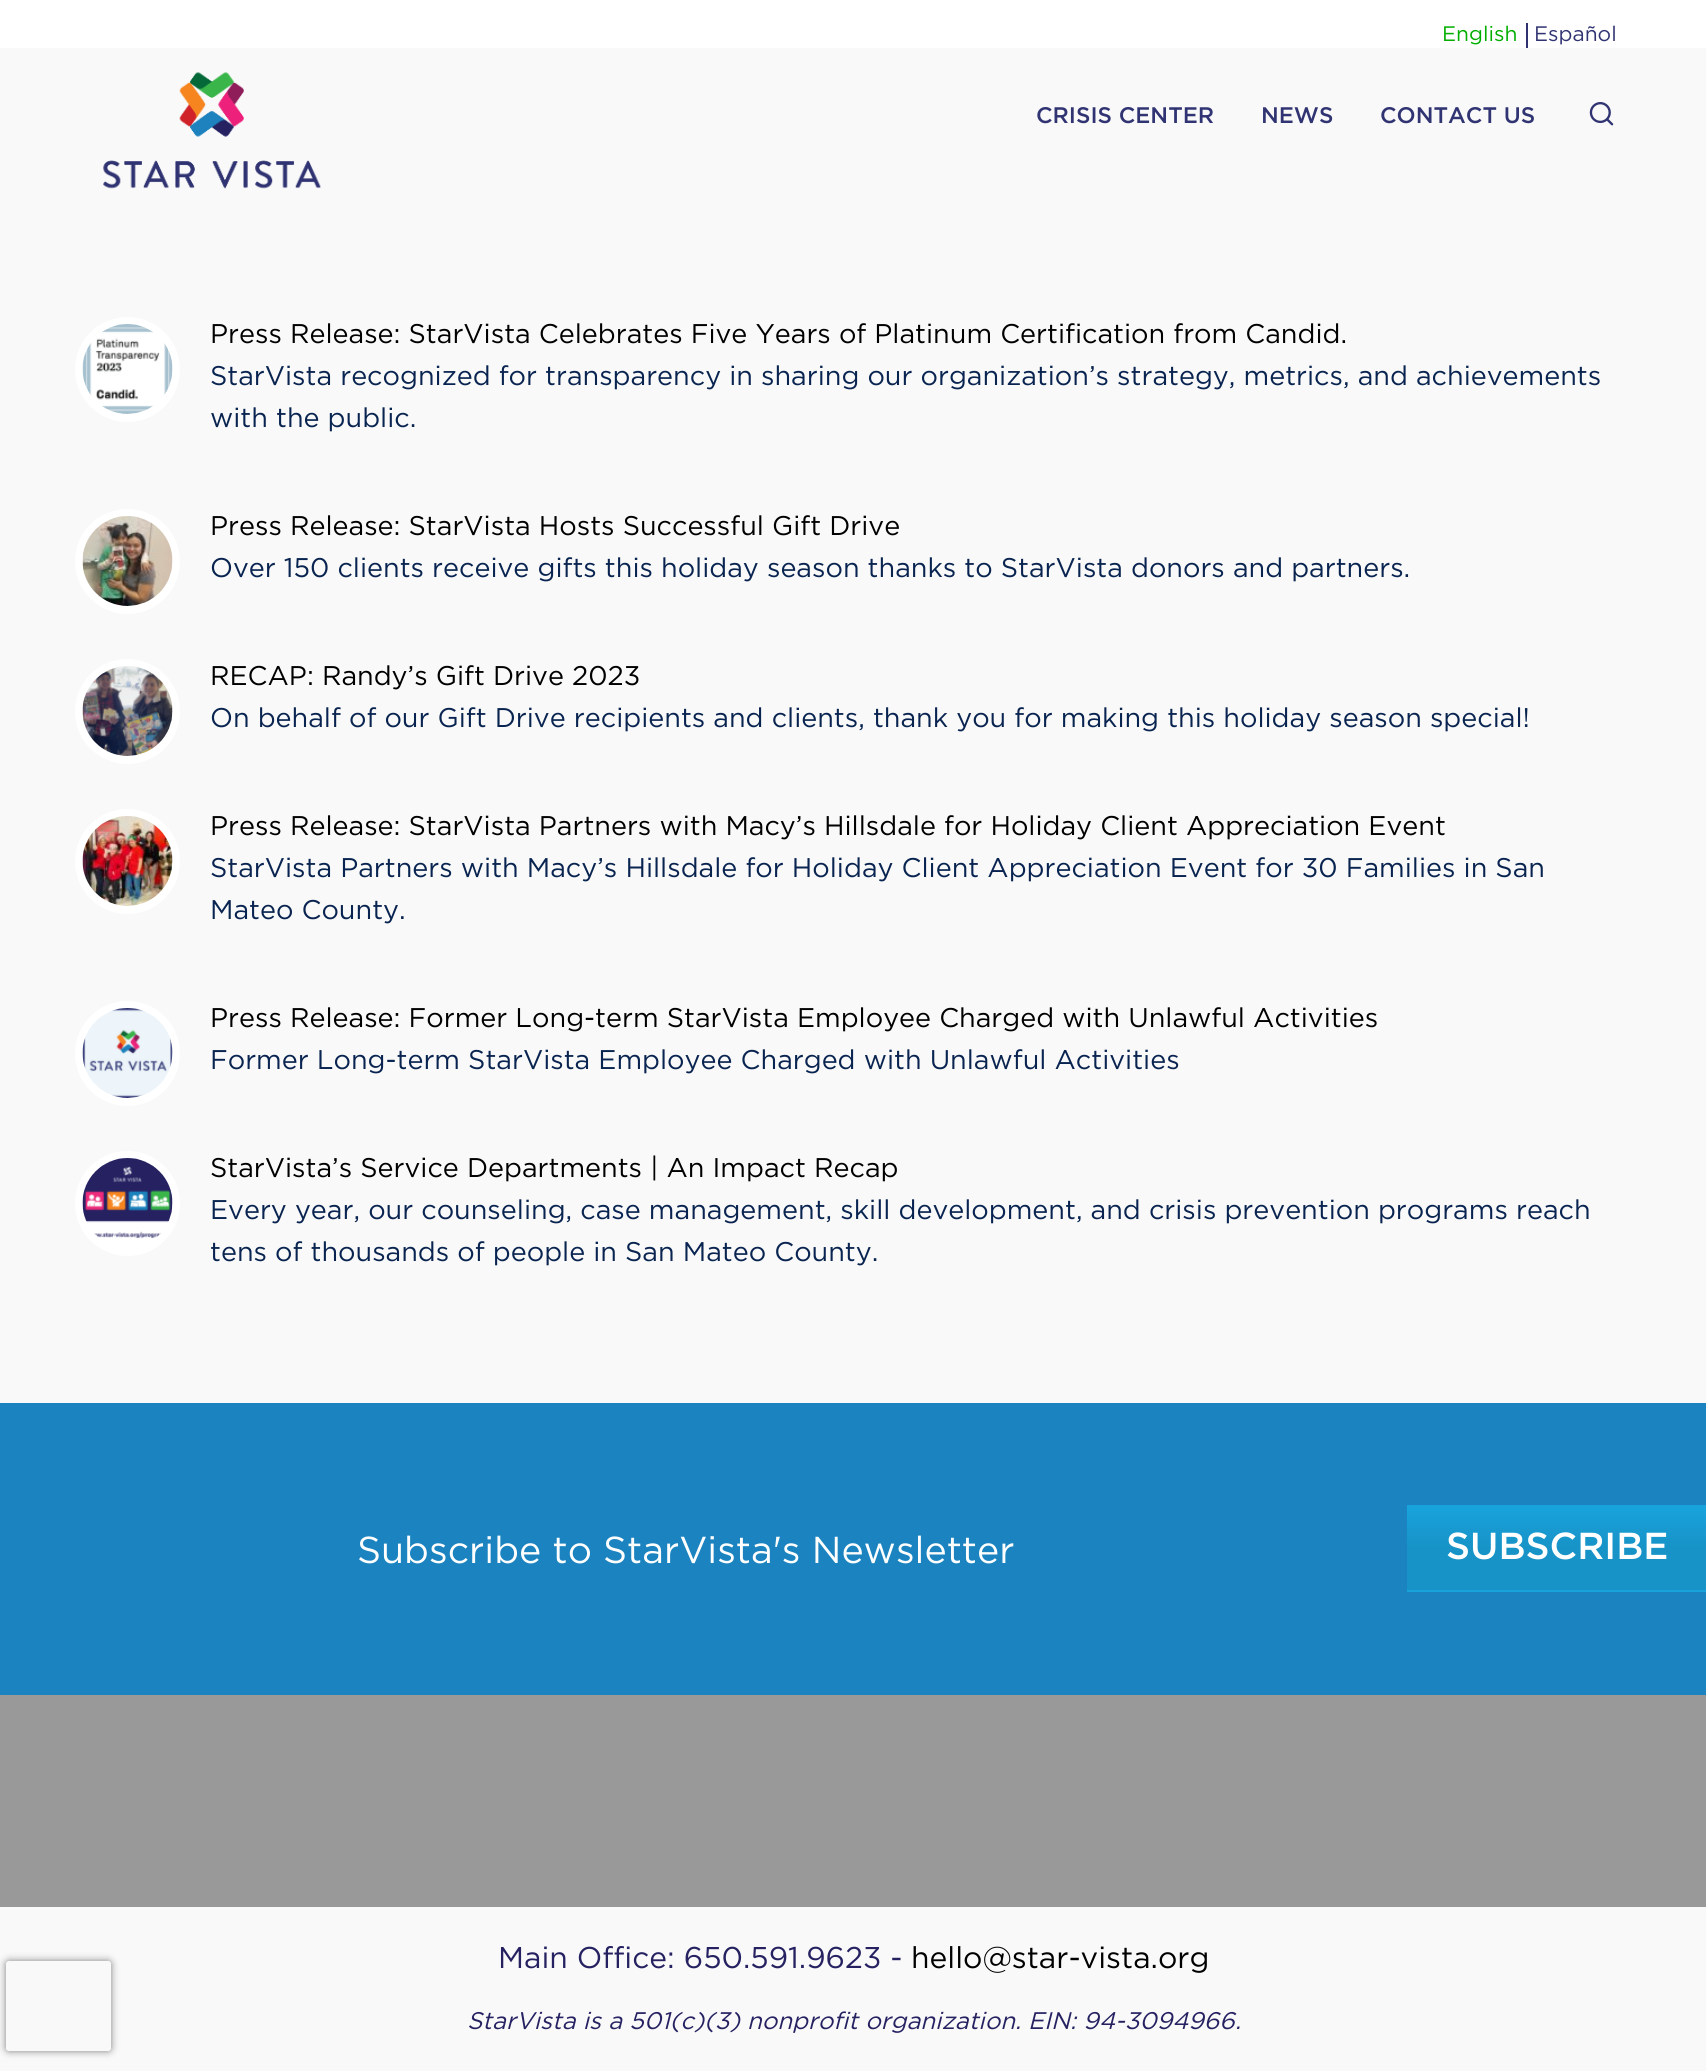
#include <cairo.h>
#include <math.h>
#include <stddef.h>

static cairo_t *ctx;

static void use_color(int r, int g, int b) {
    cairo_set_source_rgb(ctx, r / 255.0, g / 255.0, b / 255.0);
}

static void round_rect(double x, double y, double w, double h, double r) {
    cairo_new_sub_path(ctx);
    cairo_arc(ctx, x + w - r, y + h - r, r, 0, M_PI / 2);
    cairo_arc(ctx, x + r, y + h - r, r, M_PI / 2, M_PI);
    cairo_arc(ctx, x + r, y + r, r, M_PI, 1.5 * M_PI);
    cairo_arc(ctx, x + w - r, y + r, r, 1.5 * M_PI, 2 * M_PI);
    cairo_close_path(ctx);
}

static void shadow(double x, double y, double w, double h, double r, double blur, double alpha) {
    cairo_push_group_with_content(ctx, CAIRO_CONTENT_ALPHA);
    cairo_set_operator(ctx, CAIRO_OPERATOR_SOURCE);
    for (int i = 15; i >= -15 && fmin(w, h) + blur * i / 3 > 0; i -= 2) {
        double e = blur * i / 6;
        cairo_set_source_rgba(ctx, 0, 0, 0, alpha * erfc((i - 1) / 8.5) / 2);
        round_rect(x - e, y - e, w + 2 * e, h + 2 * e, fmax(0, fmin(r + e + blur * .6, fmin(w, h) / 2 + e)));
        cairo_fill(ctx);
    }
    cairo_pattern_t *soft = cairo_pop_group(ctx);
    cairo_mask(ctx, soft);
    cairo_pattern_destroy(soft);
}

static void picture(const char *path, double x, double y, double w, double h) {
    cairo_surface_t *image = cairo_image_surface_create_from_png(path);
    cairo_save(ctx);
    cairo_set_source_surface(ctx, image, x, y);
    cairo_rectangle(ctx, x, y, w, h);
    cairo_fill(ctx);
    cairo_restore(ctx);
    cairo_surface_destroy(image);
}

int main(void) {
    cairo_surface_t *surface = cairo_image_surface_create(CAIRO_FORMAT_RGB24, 1706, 2071);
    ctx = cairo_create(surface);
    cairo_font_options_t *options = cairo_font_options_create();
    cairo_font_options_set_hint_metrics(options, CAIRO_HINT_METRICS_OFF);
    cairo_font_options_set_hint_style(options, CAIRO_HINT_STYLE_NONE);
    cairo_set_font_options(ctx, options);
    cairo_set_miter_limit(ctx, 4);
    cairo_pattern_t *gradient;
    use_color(249, 249, 249);
    cairo_paint(ctx);
    cairo_save(ctx);
    cairo_set_fill_rule(ctx, CAIRO_FILL_RULE_EVEN_ODD);
    cairo_new_path(ctx);
    cairo_move_to(ctx, 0, 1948);
    cairo_line_to(ctx, 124, 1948);
    cairo_line_to(ctx, 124, 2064);
    cairo_line_to(ctx, 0, 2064);
    cairo_close_path(ctx);
    cairo_move_to(ctx, 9, 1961);
    cairo_line_to(ctx, 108, 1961);
    cairo_curve_to(ctx, 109.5, 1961, 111, 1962.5, 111, 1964);
    cairo_line_to(ctx, 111, 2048);
    cairo_curve_to(ctx, 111, 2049.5, 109.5, 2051, 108, 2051);
    cairo_line_to(ctx, 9, 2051);
    cairo_curve_to(ctx, 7.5, 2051, 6, 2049.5, 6, 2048);
    cairo_line_to(ctx, 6, 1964);
    cairo_curve_to(ctx, 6, 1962.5, 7.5, 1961, 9, 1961);
    cairo_close_path(ctx);
    cairo_clip(ctx);
    use_color(128, 128, 128);
    shadow(6, 1961, 105, 90, 3, 4, 1);
    cairo_restore(ctx);
    use_color(255, 255, 255);
    cairo_rectangle(ctx, 0, 0, 1706, 48);
    cairo_fill(ctx);
    cairo_select_font_face(ctx, "Gotham", CAIRO_FONT_SLANT_NORMAL, CAIRO_FONT_WEIGHT_NORMAL);
    cairo_set_font_size(ctx, 21);
    use_color(1, 174, 0);
    cairo_move_to(ctx, 1442, 41);
    cairo_show_text(ctx, "English");
    use_color(47, 50, 110);
    cairo_rectangle(ctx, 1526, 23, 2, 25);
    cairo_fill(ctx);
    use_color(49, 52, 114);
    cairo_move_to(ctx, 1534, 41);
    cairo_show_text(ctx, "Español");
    picture("img1.png", 103, 72, 218, 117);
    cairo_select_font_face(ctx, "Gotham Medium", CAIRO_FONT_SLANT_NORMAL, CAIRO_FONT_WEIGHT_NORMAL);
    cairo_set_font_size(ctx, 22.5);
    cairo_move_to(ctx, 1036, 123);
    cairo_show_text(ctx, "CRISIS CENTER");
    cairo_move_to(ctx, 1261, 123);
    cairo_show_text(ctx, "NEWS");
    cairo_move_to(ctx, 1380, 123);
    cairo_show_text(ctx, "CONTACT US");
    picture("img2.png", 1589, 102, 25, 24);
    use_color(255, 255, 255);
    cairo_arc(ctx, 127.5, 369.5, 52.5, 0, 2 * M_PI);
    cairo_fill(ctx);
    picture("img3.png", 82, 324, 91, 90);
    cairo_select_font_face(ctx, "Gotham", CAIRO_FONT_SLANT_NORMAL, CAIRO_FONT_WEIGHT_NORMAL);
    cairo_set_font_size(ctx, 27);
    use_color(0, 0, 0);
    cairo_move_to(ctx, 210, 343);
    cairo_show_text(ctx, "Press Release: StarVista Celebrates Five Years of Platinum Certification from Candid.");
    use_color(9, 36, 80);
    cairo_move_to(ctx, 210, 385);
    cairo_show_text(ctx, "StarVista recognized for transparency in sharing our organization’s strategy, metrics, and achievements");
    cairo_move_to(ctx, 210, 427);
    cairo_show_text(ctx, "with the public.");
    use_color(255, 255, 255);
    cairo_new_path(ctx);
    cairo_arc(ctx, 127.5, 561.5, 52.5, 0, 2 * M_PI);
    cairo_fill(ctx);
    picture("img4.png", 82, 516, 91, 90);
    use_color(0, 0, 0);
    cairo_move_to(ctx, 210, 535);
    cairo_show_text(ctx, "Press Release: StarVista Hosts Successful Gift Drive");
    use_color(9, 36, 80);
    cairo_move_to(ctx, 210, 577);
    cairo_show_text(ctx, "Over 150 clients receive gifts this holiday season thanks to StarVista donors and partners.");
    use_color(255, 255, 255);
    cairo_new_path(ctx);
    cairo_arc(ctx, 127.5, 711.5, 52.5, 0, 2 * M_PI);
    cairo_fill(ctx);
    picture("img5.png", 82, 666, 91, 90);
    use_color(0, 0, 0);
    cairo_move_to(ctx, 210, 685);
    cairo_show_text(ctx, "RECAP: Randy’s Gift Drive 2023");
    use_color(9, 36, 80);
    cairo_move_to(ctx, 210, 727);
    cairo_show_text(ctx, "On behalf of our Gift Drive recipients and clients, thank you for making this holiday season special!");
    use_color(255, 255, 255);
    cairo_new_path(ctx);
    cairo_arc(ctx, 127.5, 861.5, 52.5, 0, 2 * M_PI);
    cairo_fill(ctx);
    picture("img6.png", 82, 816, 91, 90);
    use_color(0, 0, 0);
    cairo_move_to(ctx, 210, 835);
    cairo_show_text(ctx, "Press Release: StarVista Partners with Macy’s Hillsdale for Holiday Client Appreciation Event");
    use_color(9, 36, 80);
    cairo_move_to(ctx, 210, 877);
    cairo_show_text(ctx, "StarVista Partners with Macy’s Hillsdale for Holiday Client Appreciation Event for 30 Families in San");
    cairo_move_to(ctx, 210, 919);
    cairo_show_text(ctx, "Mateo County.");
    use_color(255, 255, 255);
    cairo_new_path(ctx);
    cairo_arc(ctx, 127.5, 1053.5, 52.5, 0, 2 * M_PI);
    cairo_fill(ctx);
    picture("img7.png", 82, 1008, 91, 90);
    use_color(0, 0, 0);
    cairo_move_to(ctx, 210, 1027);
    cairo_show_text(ctx, "Press Release: Former Long-term StarVista Employee Charged with Unlawful Activities");
    use_color(9, 36, 80);
    cairo_move_to(ctx, 210, 1069);
    cairo_show_text(ctx, "Former Long-term StarVista Employee Charged with Unlawful Activities");
    use_color(255, 255, 255);
    cairo_new_path(ctx);
    cairo_arc(ctx, 127.5, 1203.5, 52.5, 0, 2 * M_PI);
    cairo_fill(ctx);
    picture("img8.png", 82, 1158, 91, 81);
    use_color(0, 0, 0);
    cairo_move_to(ctx, 210, 1177);
    cairo_show_text(ctx, "StarVista’s Service Departments | An Impact Recap");
    use_color(9, 36, 80);
    cairo_move_to(ctx, 210, 1219);
    cairo_show_text(ctx, "Every year, our counseling, case management, skill development, and crisis prevention programs reach");
    cairo_move_to(ctx, 210, 1261);
    cairo_show_text(ctx, "tens of thousands of people in San Mateo County.");
    use_color(27, 131, 191);
    cairo_rectangle(ctx, 0, 1403, 1706, 292);
    cairo_fill(ctx);
    cairo_set_font_size(ctx, 37.5);
    use_color(255, 255, 255);
    cairo_move_to(ctx, 357, 1563);
    cairo_show_text(ctx, "Subscribe to StarVista's Newsletter");
    use_color(25, 163, 221);
    cairo_rectangle(ctx, 1407, 1505, 299, 87);
    cairo_fill(ctx);
    gradient = cairo_pattern_create_linear(1706, 1506, 1706, 1590);
    cairo_pattern_add_color_stop_rgba(gradient, 0, 0.098, 0.639, 0.867, 1);
    cairo_pattern_add_color_stop_rgba(gradient, 0.5, 0.09, 0.576, 0.78, 1);
    cairo_pattern_add_color_stop_rgba(gradient, 1, 0.09, 0.576, 0.78, 1);
    cairo_set_source(ctx, gradient);
    cairo_pattern_destroy(gradient);
    cairo_rectangle(ctx, 1407, 1511, 299, 79);
    cairo_fill(ctx);
    cairo_select_font_face(ctx, "Gotham Medium", CAIRO_FONT_SLANT_NORMAL, CAIRO_FONT_WEIGHT_NORMAL);
    use_color(255, 255, 255);
    cairo_move_to(ctx, 1446, 1559);
    cairo_show_text(ctx, "SUBSCRIBE");
    use_color(153, 153, 153);
    cairo_rectangle(ctx, 0, 1695, 1706, 212);
    cairo_fill(ctx);
    cairo_select_font_face(ctx, "Gotham", CAIRO_FONT_SLANT_NORMAL, CAIRO_FONT_WEIGHT_NORMAL);
    cairo_set_font_size(ctx, 30);
    use_color(38, 34, 98);
    cairo_move_to(ctx, 498, 1968);
    cairo_show_text(ctx, "Main Office: 650.591.9623 -");
    use_color(0, 0, 0);
    cairo_move_to(ctx, 911, 1968);
    cairo_show_text(ctx, "hello@star-vista.org");
    cairo_select_font_face(ctx, "Gotham", CAIRO_FONT_SLANT_ITALIC, CAIRO_FONT_WEIGHT_NORMAL);
    cairo_set_font_size(ctx, 24);
    use_color(38, 34, 98);
    cairo_move_to(ctx, 467, 2029);
    cairo_show_text(ctx, "StarVista is a 501(c)(3) nonprofit organization. EIN: 94-3094966.");
    cairo_surface_write_to_png(surface, "result.png");
    cairo_font_options_destroy(options);
    cairo_destroy(ctx);
    cairo_surface_destroy(surface);
    return 0;
}
